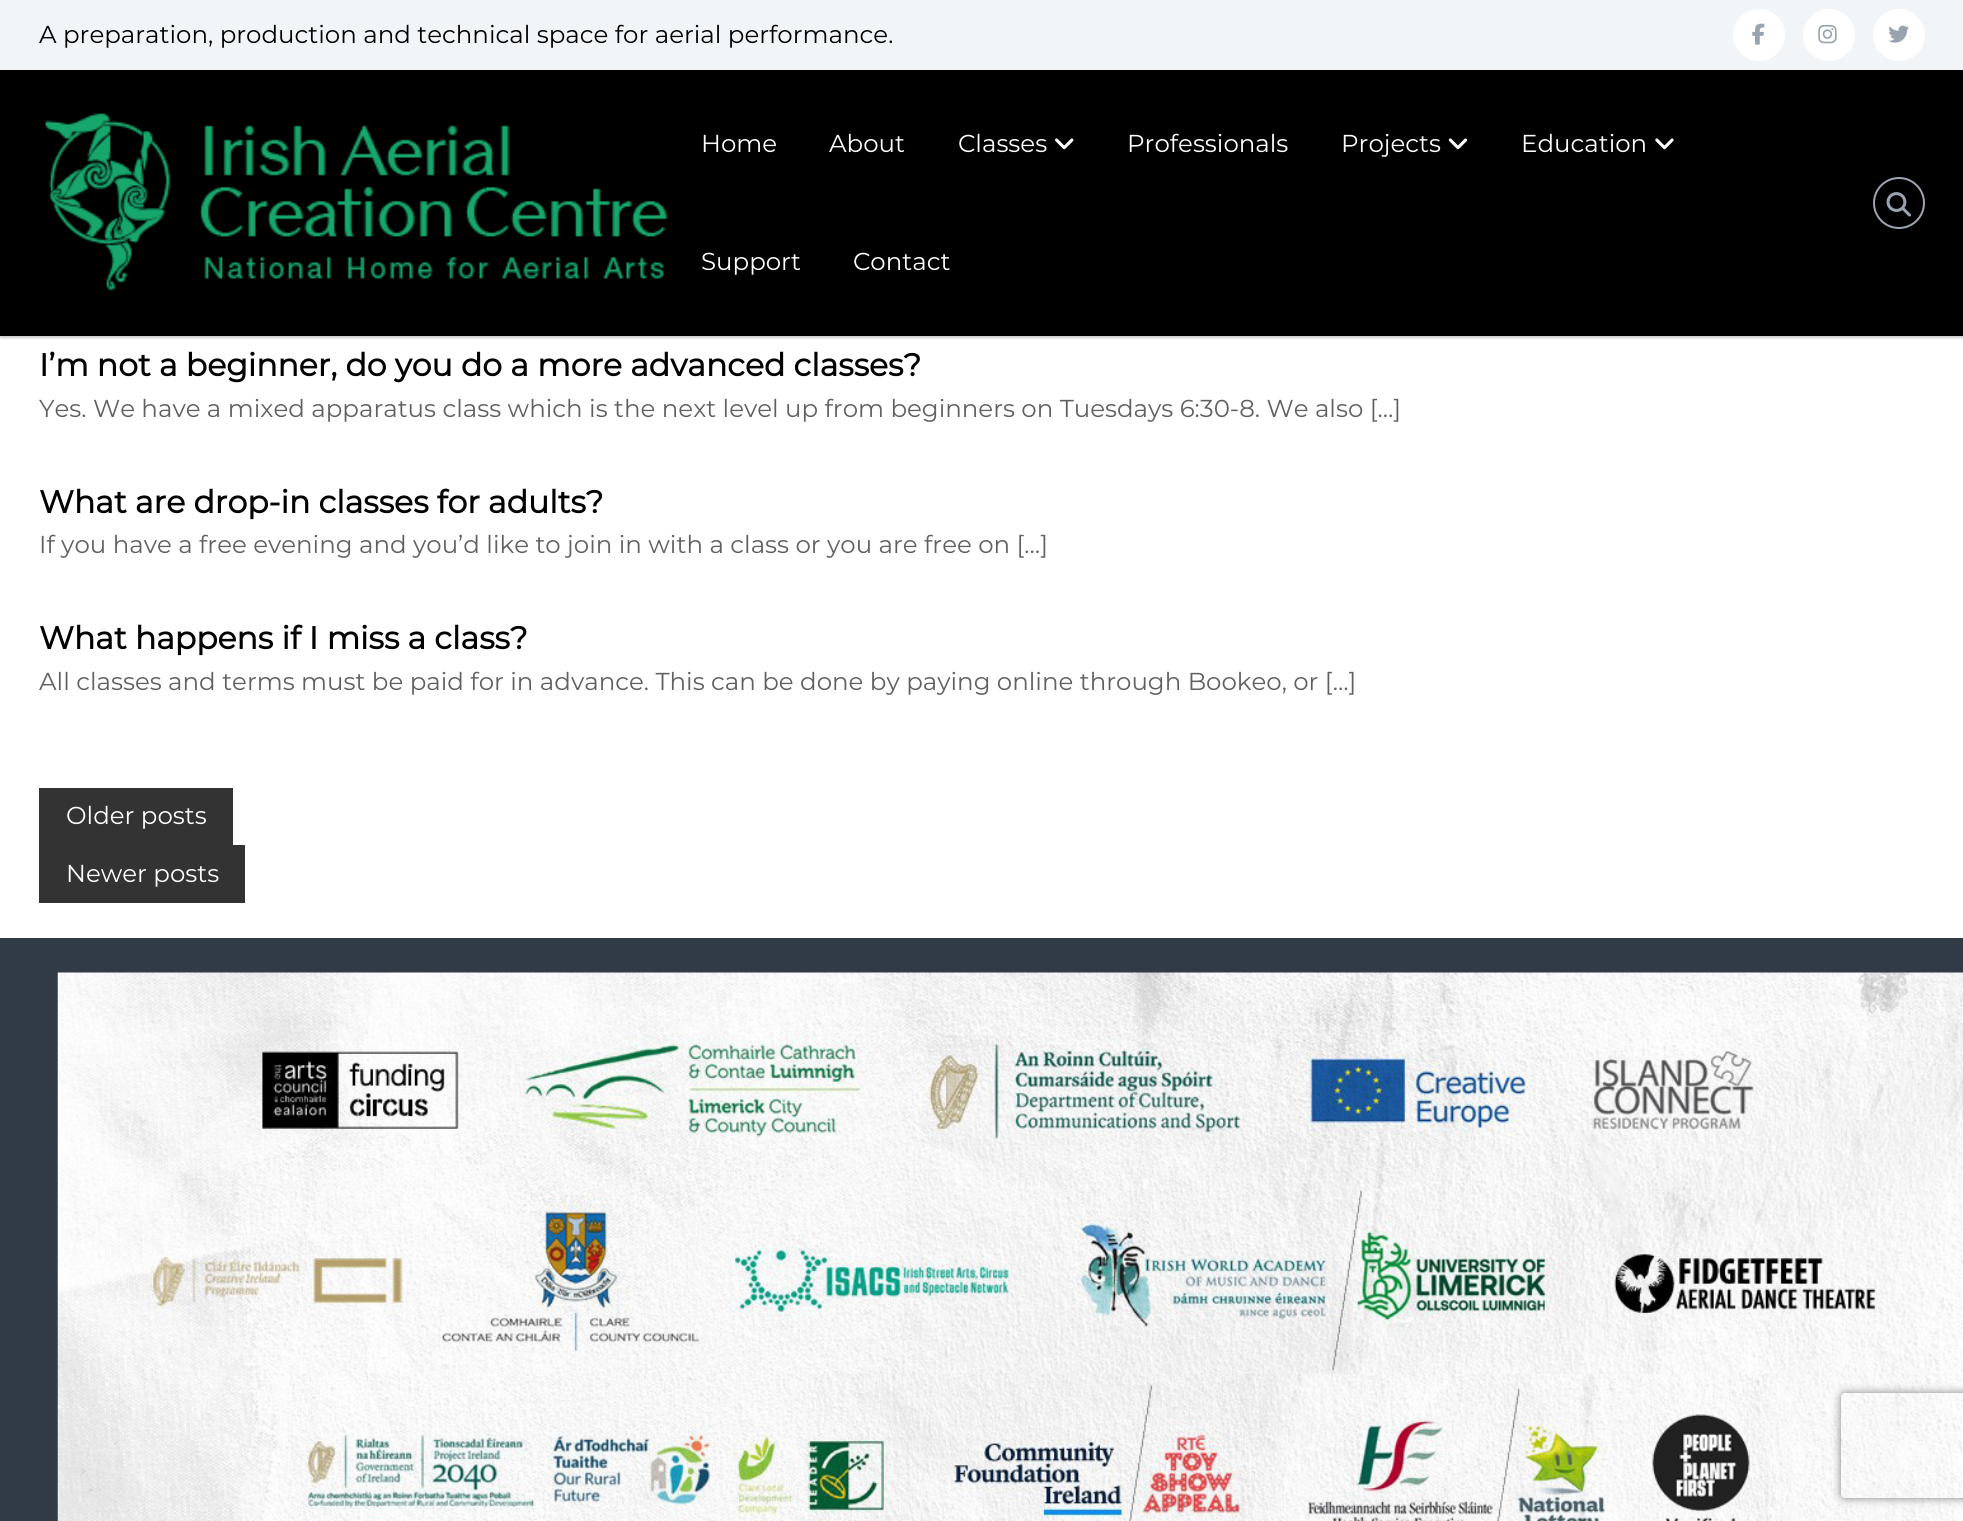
#include <cairo.h>
#include <math.h>
#include <stddef.h>

static cairo_t *ctx;

static void use_color(int r, int g, int b) {
    cairo_set_source_rgb(ctx, r / 255.0, g / 255.0, b / 255.0);
}

static void round_rect(double x, double y, double w, double h, double r) {
    cairo_new_sub_path(ctx);
    cairo_arc(ctx, x + w - r, y + h - r, r, 0, M_PI / 2);
    cairo_arc(ctx, x + r, y + h - r, r, M_PI / 2, M_PI);
    cairo_arc(ctx, x + r, y + r, r, M_PI, 1.5 * M_PI);
    cairo_arc(ctx, x + w - r, y + r, r, 1.5 * M_PI, 2 * M_PI);
    cairo_close_path(ctx);
}

static void shadow(double x, double y, double w, double h, double r, double blur, double alpha) {
    cairo_push_group_with_content(ctx, CAIRO_CONTENT_ALPHA);
    cairo_set_operator(ctx, CAIRO_OPERATOR_SOURCE);
    for (int i = 15; i >= -15 && fmin(w, h) + blur * i / 3 > 0; i -= 2) {
        double e = blur * i / 6;
        cairo_set_source_rgba(ctx, 0, 0, 0, alpha * erfc((i - 1) / 8.5) / 2);
        round_rect(x - e, y - e, w + 2 * e, h + 2 * e, fmax(0, fmin(r + e + blur * .6, fmin(w, h) / 2 + e)));
        cairo_fill(ctx);
    }
    cairo_pattern_t *soft = cairo_pop_group(ctx);
    cairo_mask(ctx, soft);
    cairo_pattern_destroy(soft);
}

static void picture(const char *path, double x, double y, double w, double h) {
    cairo_surface_t *image = cairo_image_surface_create_from_png(path);
    cairo_save(ctx);
    cairo_set_source_surface(ctx, image, x, y);
    cairo_rectangle(ctx, x, y, w, h);
    cairo_fill(ctx);
    cairo_restore(ctx);
    cairo_surface_destroy(image);
}

int main(void) {
    cairo_surface_t *surface = cairo_image_surface_create(CAIRO_FORMAT_RGB24, 1963, 1521);
    ctx = cairo_create(surface);
    cairo_font_options_t *options = cairo_font_options_create();
    cairo_font_options_set_hint_metrics(options, CAIRO_HINT_METRICS_OFF);
    cairo_font_options_set_hint_style(options, CAIRO_HINT_STYLE_NONE);
    cairo_set_font_options(ctx, options);
    cairo_set_miter_limit(ctx, 4);
    use_color(255, 255, 255);
    cairo_paint(ctx);
    use_color(241, 245, 248);
    cairo_rectangle(ctx, 0, 0, 1963, 70);
    cairo_fill(ctx);
    cairo_select_font_face(ctx, "Montserrat", CAIRO_FONT_SLANT_NORMAL, CAIRO_FONT_WEIGHT_NORMAL);
    cairo_set_font_size(ctx, 24.5);
    use_color(0, 0, 0);
    cairo_move_to(ctx, 39, 43);
    cairo_show_text(ctx, "A preparation, production and technical space for aerial performance.");
    use_color(255, 255, 255);
    cairo_new_path(ctx);
    cairo_arc(ctx, 1759, 35, 26, 0, 2 * M_PI);
    cairo_fill(ctx);
    picture("img1.png", 1752, 23, 13, 22);
    cairo_arc(ctx, 1829, 35, 26, 0, 2 * M_PI);
    cairo_fill(ctx);
    picture("img2.png", 1818, 24, 19, 20);
    cairo_arc(ctx, 1899, 35, 26, 0, 2 * M_PI);
    cairo_fill(ctx);
    picture("img3.png", 1888, 25, 21, 18);
    use_color(0, 0, 0);
    shadow(0, 72, 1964, 266, 0, 1, 0.2);
    use_color(0, 0, 0);
    cairo_rectangle(ctx, 0, 70, 1963, 266);
    cairo_fill(ctx);
    picture("img4.png", 45, 113, 623, 178);
    use_color(255, 255, 255);
    cairo_move_to(ctx, 701, 152);
    cairo_show_text(ctx, "Home");
    cairo_move_to(ctx, 829, 152);
    cairo_show_text(ctx, "About");
    cairo_move_to(ctx, 958, 152);
    cairo_show_text(ctx, "Classes");
    picture("img5.png", 1055, 138, 19, 12);
    cairo_move_to(ctx, 1127, 152);
    cairo_show_text(ctx, "Professionals");
    cairo_move_to(ctx, 1341, 152);
    cairo_show_text(ctx, "Projects");
    picture("img6.png", 1448, 138, 20, 12);
    cairo_move_to(ctx, 1521, 152);
    cairo_show_text(ctx, "Education");
    picture("img7.png", 1655, 138, 19, 12);
    cairo_move_to(ctx, 701, 270);
    cairo_show_text(ctx, "Support");
    cairo_move_to(ctx, 853, 270);
    cairo_show_text(ctx, "Contact");
    cairo_new_path(ctx);
    cairo_arc(ctx, 1899, 203, 25, 0, 2 * M_PI);
    use_color(156, 166, 178);
    cairo_stroke(ctx);
    picture("img8.png", 1886, 192, 25, 25);
    cairo_select_font_face(ctx, "Montserrat", CAIRO_FONT_SLANT_NORMAL, CAIRO_FONT_WEIGHT_BOLD);
    cairo_set_font_size(ctx, 31.5);
    use_color(0, 0, 0);
    cairo_move_to(ctx, 39, 376);
    cairo_show_text(ctx, "I’m not a beginner, do you do a more advanced classes?");
    cairo_select_font_face(ctx, "Montserrat", CAIRO_FONT_SLANT_NORMAL, CAIRO_FONT_WEIGHT_NORMAL);
    cairo_set_font_size(ctx, 24.5);
    use_color(96, 96, 96);
    cairo_move_to(ctx, 39, 417);
    cairo_show_text(ctx, "Yes. We have a mixed apparatus class which is the next level up from beginners on Tuesdays 6:30-8. We also […]");
    cairo_select_font_face(ctx, "Montserrat", CAIRO_FONT_SLANT_NORMAL, CAIRO_FONT_WEIGHT_BOLD);
    cairo_set_font_size(ctx, 31.5);
    use_color(0, 0, 0);
    cairo_move_to(ctx, 39, 513);
    cairo_show_text(ctx, "What are drop-in classes for adults?");
    cairo_select_font_face(ctx, "Montserrat", CAIRO_FONT_SLANT_NORMAL, CAIRO_FONT_WEIGHT_NORMAL);
    cairo_set_font_size(ctx, 24.5);
    use_color(96, 96, 96);
    cairo_move_to(ctx, 39, 553);
    cairo_show_text(ctx, "If you have a free evening and you’d like to join in with a class or you are free on […]");
    cairo_select_font_face(ctx, "Montserrat", CAIRO_FONT_SLANT_NORMAL, CAIRO_FONT_WEIGHT_BOLD);
    cairo_set_font_size(ctx, 31.5);
    use_color(0, 0, 0);
    cairo_move_to(ctx, 39, 649);
    cairo_show_text(ctx, "What happens if I miss a class?");
    cairo_select_font_face(ctx, "Montserrat", CAIRO_FONT_SLANT_NORMAL, CAIRO_FONT_WEIGHT_NORMAL);
    cairo_set_font_size(ctx, 24.5);
    use_color(96, 96, 96);
    cairo_move_to(ctx, 39, 690);
    cairo_show_text(ctx, "All classes and terms must be paid for in advance. This can be done by paying online through Bookeo, or […]");
    use_color(51, 51, 51);
    cairo_rectangle(ctx, 39, 788, 194, 57);
    cairo_fill(ctx);
    use_color(255, 255, 255);
    cairo_move_to(ctx, 66, 824);
    cairo_show_text(ctx, "Older posts");
    use_color(51, 51, 51);
    cairo_rectangle(ctx, 39, 845, 206, 58);
    cairo_fill(ctx);
    use_color(255, 255, 255);
    cairo_move_to(ctx, 66, 882);
    cairo_show_text(ctx, "Newer posts");
    use_color(49, 59, 72);
    cairo_rectangle(ctx, 0, 938, 1963, 583);
    cairo_fill(ctx);
    picture("img9.png", 57, 972, 1906, 549);
    cairo_save(ctx);
    cairo_set_fill_rule(ctx, CAIRO_FILL_RULE_EVEN_ODD);
    cairo_new_path(ctx);
    cairo_move_to(ctx, 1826, 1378);
    cairo_line_to(ctx, 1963, 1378);
    cairo_line_to(ctx, 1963, 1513);
    cairo_line_to(ctx, 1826, 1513);
    cairo_close_path(ctx);
    cairo_move_to(ctx, 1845, 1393);
    cairo_line_to(ctx, 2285, 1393);
    cairo_curve_to(ctx, 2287, 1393, 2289, 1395, 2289, 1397);
    cairo_line_to(ctx, 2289, 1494);
    cairo_curve_to(ctx, 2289, 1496, 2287, 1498, 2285, 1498);
    cairo_line_to(ctx, 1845, 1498);
    cairo_curve_to(ctx, 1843, 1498, 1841, 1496, 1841, 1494);
    cairo_line_to(ctx, 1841, 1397);
    cairo_curve_to(ctx, 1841, 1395, 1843, 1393, 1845, 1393);
    cairo_close_path(ctx);
    cairo_clip(ctx);
    use_color(128, 128, 128);
    shadow(1841, 1393, 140, 105, 4, 4.5, 1);
    cairo_restore(ctx);
    cairo_surface_write_to_png(surface, "result.png");
    cairo_font_options_destroy(options);
    cairo_destroy(ctx);
    cairo_surface_destroy(surface);
    return 0;
}
